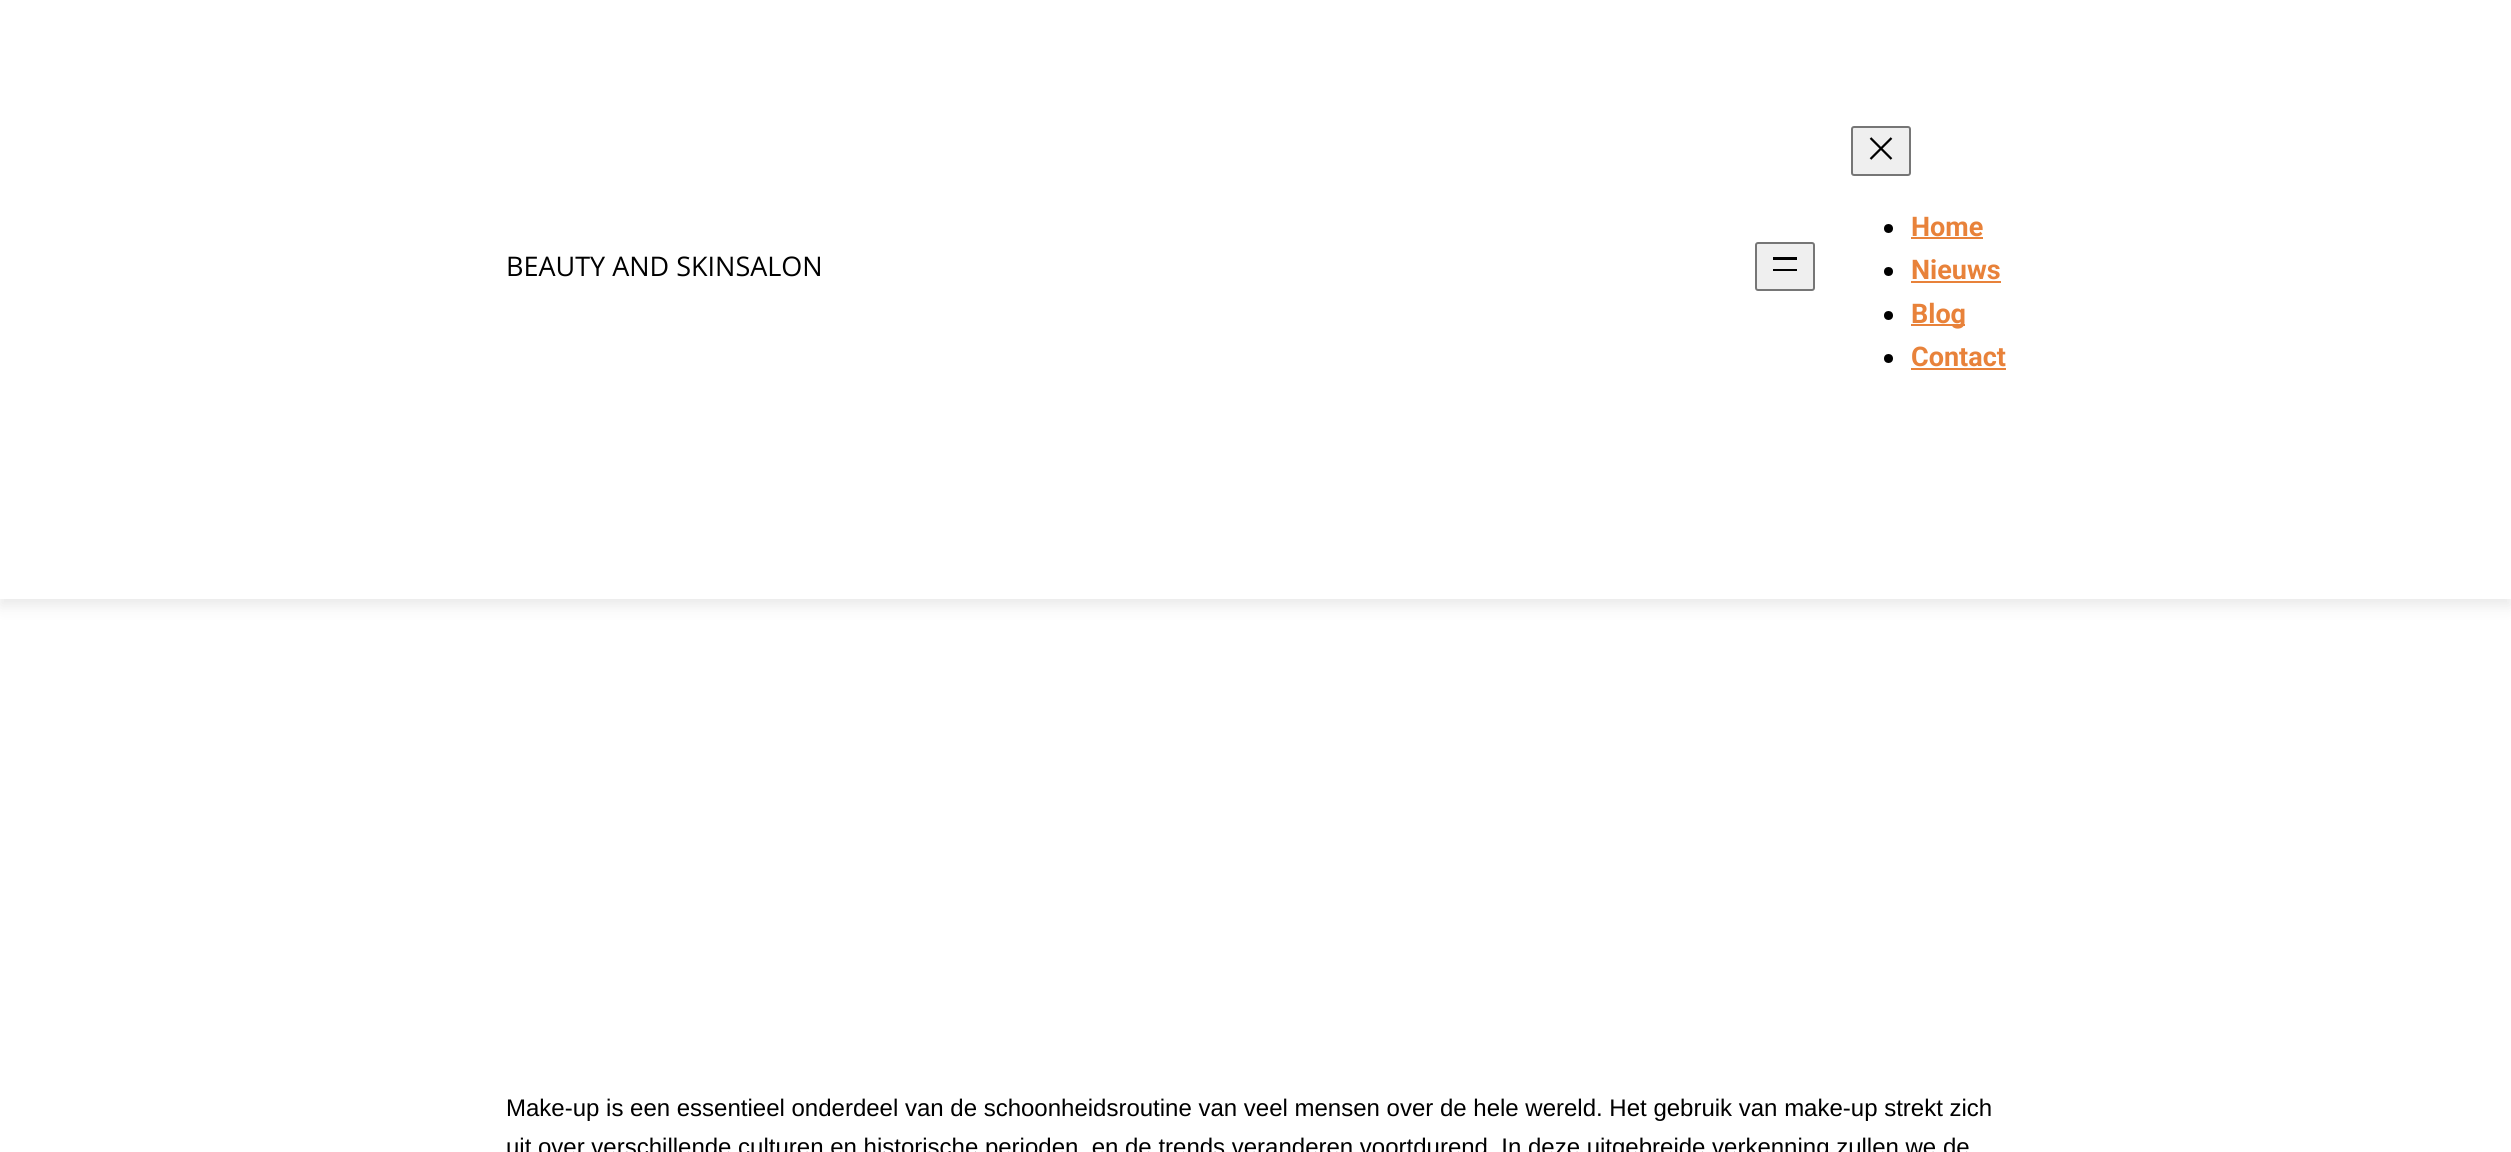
#include <cairo.h>
#include <math.h>
#include <stddef.h>

static cairo_t *ctx;

static void use_color(int r, int g, int b) {
    cairo_set_source_rgb(ctx, r / 255.0, g / 255.0, b / 255.0);
}

static void round_rect(double x, double y, double w, double h, double r) {
    cairo_new_sub_path(ctx);
    cairo_arc(ctx, x + w - r, y + h - r, r, 0, M_PI / 2);
    cairo_arc(ctx, x + r, y + h - r, r, M_PI / 2, M_PI);
    cairo_arc(ctx, x + r, y + r, r, M_PI, 1.5 * M_PI);
    cairo_arc(ctx, x + w - r, y + r, r, 1.5 * M_PI, 2 * M_PI);
    cairo_close_path(ctx);
}

static void shadow(double x, double y, double w, double h, double r, double blur, double alpha) {
    cairo_push_group_with_content(ctx, CAIRO_CONTENT_ALPHA);
    cairo_set_operator(ctx, CAIRO_OPERATOR_SOURCE);
    for (int i = 15; i >= -15 && fmin(w, h) + blur * i / 3 > 0; i -= 2) {
        double e = blur * i / 6;
        cairo_set_source_rgba(ctx, 0, 0, 0, alpha * erfc((i - 1) / 8.5) / 2);
        round_rect(x - e, y - e, w + 2 * e, h + 2 * e, fmax(0, fmin(r + e + blur * .6, fmin(w, h) / 2 + e)));
        cairo_fill(ctx);
    }
    cairo_pattern_t *soft = cairo_pop_group(ctx);
    cairo_mask(ctx, soft);
    cairo_pattern_destroy(soft);
}

static void picture(const char *path, double x, double y, double w, double h) {
    cairo_surface_t *image = cairo_image_surface_create_from_png(path);
    cairo_save(ctx);
    cairo_set_source_surface(ctx, image, x, y);
    cairo_rectangle(ctx, x, y, w, h);
    cairo_fill(ctx);
    cairo_restore(ctx);
    cairo_surface_destroy(image);
}

int main(void) {
    cairo_surface_t *surface = cairo_image_surface_create(CAIRO_FORMAT_RGB24, 2511, 1152);
    ctx = cairo_create(surface);
    cairo_font_options_t *options = cairo_font_options_create();
    cairo_font_options_set_hint_metrics(options, CAIRO_HINT_METRICS_OFF);
    cairo_font_options_set_hint_style(options, CAIRO_HINT_STYLE_NONE);
    cairo_set_font_options(ctx, options);
    cairo_set_miter_limit(ctx, 4);
    use_color(255, 255, 255);
    cairo_paint(ctx);
    use_color(0, 0, 0);
    shadow(0, 8, 2511, 598, 0, 7.5, 0.09);
    use_color(255, 255, 255);
    cairo_rectangle(ctx, 0, 0, 2511, 599);
    cairo_fill(ctx);
    cairo_select_font_face(ctx, "Open Sans", CAIRO_FONT_SLANT_NORMAL, CAIRO_FONT_WEIGHT_NORMAL);
    cairo_set_font_size(ctx, 27);
    use_color(0, 0, 0);
    cairo_move_to(ctx, 506, 276);
    cairo_show_text(ctx, "BEAUTY AND SKINSALON");
    use_color(239, 239, 239);
    round_rect(1756, 243, 58, 47, 2);
    cairo_fill_preserve(ctx);
    use_color(118, 118, 118);
    cairo_stroke(ctx);
    use_color(0, 0, 0);
    cairo_rectangle(ctx, 1773, 257, 24, 3);
    cairo_fill(ctx);
    cairo_rectangle(ctx, 1773, 269, 24, 2);
    cairo_fill(ctx);
    use_color(239, 239, 239);
    round_rect(1852, 127, 58, 48, 2);
    cairo_fill_preserve(ctx);
    use_color(118, 118, 118);
    cairo_stroke(ctx);
    picture("img1.png", 1869, 137, 24, 23);
    use_color(0, 0, 0);
    cairo_arc(ctx, 1888.5, 228.5, 4.5, 0, 2 * M_PI);
    cairo_fill(ctx);
    cairo_select_font_face(ctx, "Roboto", CAIRO_FONT_SLANT_NORMAL, CAIRO_FONT_WEIGHT_BOLD);
    use_color(232, 130, 58);
    cairo_move_to(ctx, 1911, 236);
    cairo_show_text(ctx, "Home");
    cairo_rectangle(ctx, 1911, 237, 72, 2);
    cairo_fill(ctx);
    use_color(0, 0, 0);
    cairo_arc(ctx, 1888.5, 271.5, 4.5, 0, 2 * M_PI);
    cairo_fill(ctx);
    use_color(232, 130, 58);
    cairo_move_to(ctx, 1911, 279);
    cairo_show_text(ctx, "Nieuws");
    cairo_rectangle(ctx, 1911, 281, 90, 2);
    cairo_fill(ctx);
    use_color(0, 0, 0);
    cairo_arc(ctx, 1888.5, 315.5, 4.5, 0, 2 * M_PI);
    cairo_fill(ctx);
    use_color(232, 130, 58);
    cairo_rectangle(ctx, 1911, 324, 54, 2);
    cairo_fill(ctx);
    cairo_move_to(ctx, 1911, 323);
    cairo_show_text(ctx, "Blog");
    use_color(0, 0, 0);
    cairo_new_path(ctx);
    cairo_arc(ctx, 1888.5, 358.5, 4.5, 0, 2 * M_PI);
    cairo_fill(ctx);
    use_color(232, 130, 58);
    cairo_move_to(ctx, 1911, 366);
    cairo_show_text(ctx, "Contact");
    cairo_rectangle(ctx, 1911, 368, 95, 2);
    cairo_fill(ctx);
    cairo_select_font_face(ctx, "Liberation Sans", CAIRO_FONT_SLANT_NORMAL, CAIRO_FONT_WEIGHT_NORMAL);
    cairo_set_font_size(ctx, 24);
    use_color(0, 0, 0);
    cairo_move_to(ctx, 506, 1116);
    cairo_show_text(ctx, "Make-up is een essentieel onderdeel van de schoonheidsroutine van veel mensen over de hele wereld. Het gebruik van make-up strekt zich");
    cairo_move_to(ctx, 506, 1155);
    cairo_show_text(ctx, "uit over verschillende culturen en historische perioden, en de trends veranderen voortdurend. In deze uitgebreide verkenning zullen we de");
    cairo_surface_write_to_png(surface, "result.png");
    cairo_font_options_destroy(options);
    cairo_destroy(ctx);
    cairo_surface_destroy(surface);
    return 0;
}
